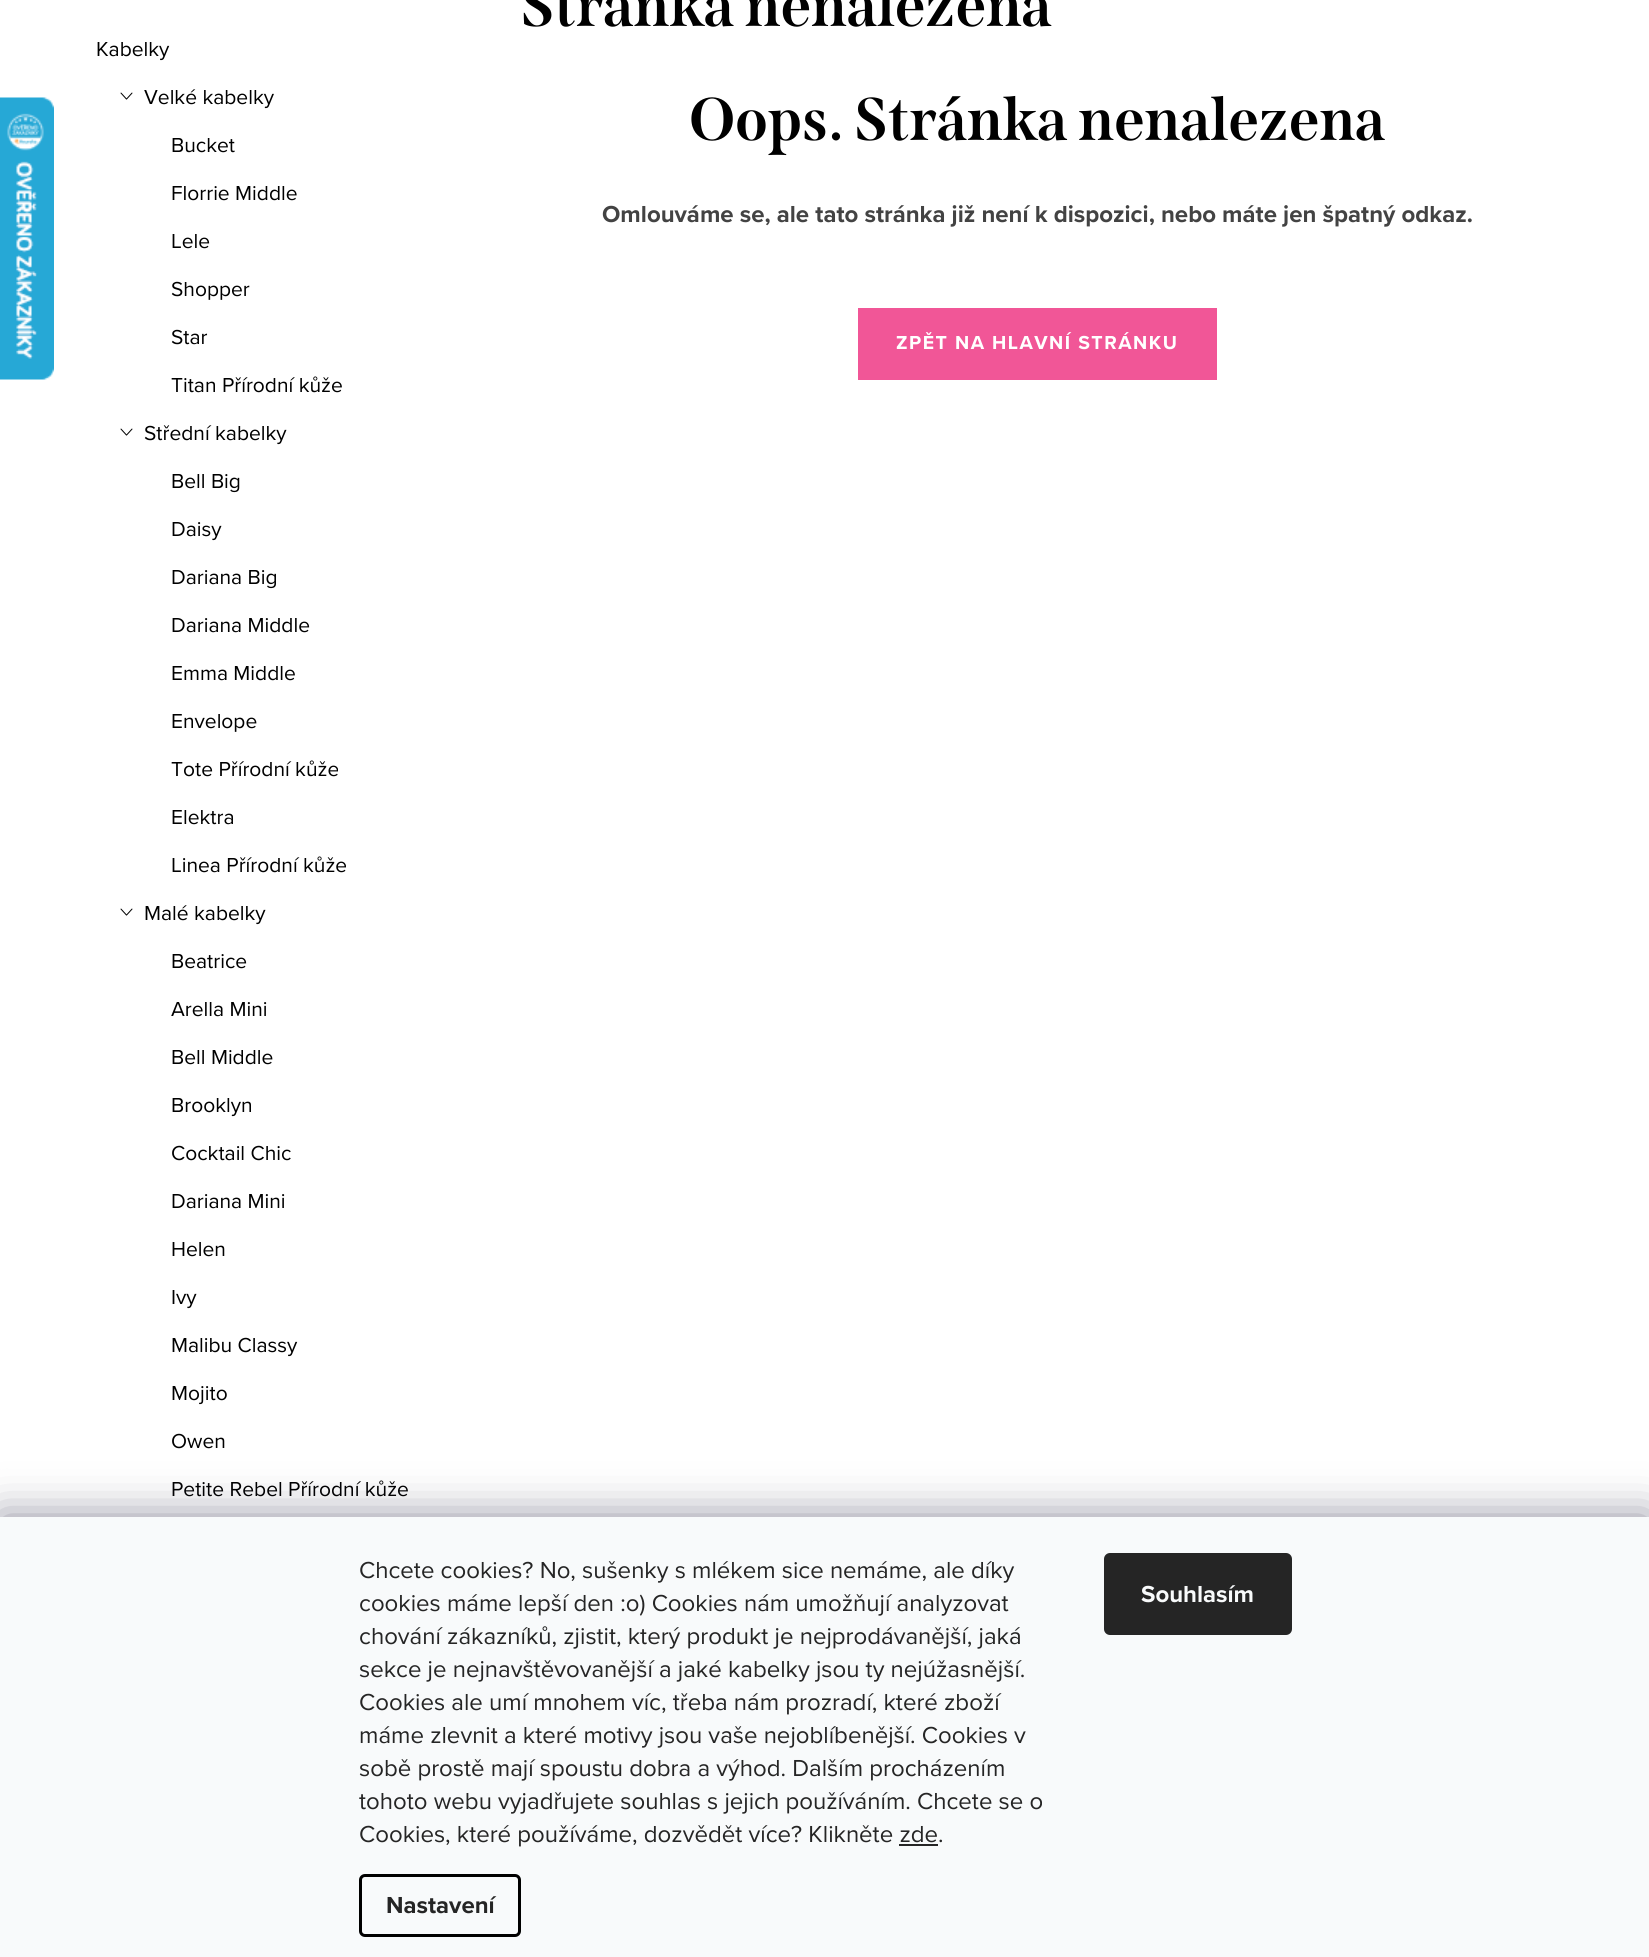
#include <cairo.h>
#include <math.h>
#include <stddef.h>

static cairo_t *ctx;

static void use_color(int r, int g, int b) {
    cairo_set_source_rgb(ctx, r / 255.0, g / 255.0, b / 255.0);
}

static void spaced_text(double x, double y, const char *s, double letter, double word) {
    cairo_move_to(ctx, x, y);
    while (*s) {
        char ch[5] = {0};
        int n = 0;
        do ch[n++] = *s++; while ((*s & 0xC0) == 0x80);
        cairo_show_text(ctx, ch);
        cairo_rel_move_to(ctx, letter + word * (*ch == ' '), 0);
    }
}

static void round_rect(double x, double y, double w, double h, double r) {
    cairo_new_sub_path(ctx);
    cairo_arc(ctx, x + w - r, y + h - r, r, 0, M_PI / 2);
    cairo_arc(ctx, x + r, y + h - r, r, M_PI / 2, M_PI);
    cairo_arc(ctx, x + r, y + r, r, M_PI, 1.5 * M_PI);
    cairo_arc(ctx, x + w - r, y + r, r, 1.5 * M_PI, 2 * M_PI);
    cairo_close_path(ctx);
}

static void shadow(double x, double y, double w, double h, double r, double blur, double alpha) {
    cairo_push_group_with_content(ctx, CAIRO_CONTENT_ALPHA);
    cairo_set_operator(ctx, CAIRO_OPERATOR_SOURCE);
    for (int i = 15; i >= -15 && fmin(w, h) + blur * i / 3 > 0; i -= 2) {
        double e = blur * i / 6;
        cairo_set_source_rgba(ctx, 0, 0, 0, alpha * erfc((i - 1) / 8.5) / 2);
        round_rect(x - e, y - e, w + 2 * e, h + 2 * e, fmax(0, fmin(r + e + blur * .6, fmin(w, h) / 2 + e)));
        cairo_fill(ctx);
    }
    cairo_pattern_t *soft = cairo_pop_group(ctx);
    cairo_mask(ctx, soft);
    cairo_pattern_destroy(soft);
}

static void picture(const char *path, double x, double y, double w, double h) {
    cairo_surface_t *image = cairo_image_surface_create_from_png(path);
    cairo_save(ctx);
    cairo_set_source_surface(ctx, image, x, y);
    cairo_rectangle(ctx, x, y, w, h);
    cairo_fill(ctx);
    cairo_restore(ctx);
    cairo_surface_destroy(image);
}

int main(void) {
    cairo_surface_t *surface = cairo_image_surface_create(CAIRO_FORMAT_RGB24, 1649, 1957);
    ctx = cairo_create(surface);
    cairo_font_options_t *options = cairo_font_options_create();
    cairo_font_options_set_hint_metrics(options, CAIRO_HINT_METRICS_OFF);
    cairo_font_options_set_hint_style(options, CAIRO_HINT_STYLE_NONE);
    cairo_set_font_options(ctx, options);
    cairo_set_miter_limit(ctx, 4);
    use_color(255, 255, 255);
    cairo_paint(ctx);
    picture("img1.png", 0, 97, 54, 283);
    cairo_select_font_face(ctx, "Proxima Nova", CAIRO_FONT_SLANT_NORMAL, CAIRO_FONT_WEIGHT_NORMAL);
    cairo_set_font_size(ctx, 21);
    use_color(0, 0, 0);
    cairo_move_to(ctx, 96, 56);
    cairo_show_text(ctx, "Kabelky");
    picture("img2.png", 120, 92, 13, 8);
    cairo_move_to(ctx, 144, 104);
    cairo_show_text(ctx, "Velké kabelky");
    cairo_move_to(ctx, 171, 152);
    cairo_show_text(ctx, "Bucket");
    cairo_move_to(ctx, 171, 200);
    cairo_show_text(ctx, "Florrie Middle");
    cairo_move_to(ctx, 171, 248);
    cairo_show_text(ctx, "Lele");
    cairo_move_to(ctx, 171, 296);
    cairo_show_text(ctx, "Shopper");
    cairo_move_to(ctx, 171, 344);
    cairo_show_text(ctx, "Star");
    cairo_move_to(ctx, 171, 392);
    cairo_show_text(ctx, "Titan Přírodní kůže");
    picture("img2.png", 120, 428, 13, 8);
    cairo_move_to(ctx, 144, 440);
    cairo_show_text(ctx, "Střední kabelky");
    cairo_move_to(ctx, 171, 488);
    cairo_show_text(ctx, "Bell Big");
    cairo_move_to(ctx, 171, 536);
    cairo_show_text(ctx, "Daisy");
    cairo_move_to(ctx, 171, 584);
    cairo_show_text(ctx, "Dariana Big");
    cairo_move_to(ctx, 171, 632);
    cairo_show_text(ctx, "Dariana Middle");
    cairo_move_to(ctx, 171, 680);
    cairo_show_text(ctx, "Emma Middle");
    cairo_move_to(ctx, 171, 728);
    cairo_show_text(ctx, "Envelope");
    cairo_move_to(ctx, 171, 776);
    cairo_show_text(ctx, "Tote Přírodní kůže");
    cairo_move_to(ctx, 171, 824);
    cairo_show_text(ctx, "Elektra");
    cairo_move_to(ctx, 171, 872);
    cairo_show_text(ctx, "Linea Přírodní kůže");
    picture("img2.png", 120, 908, 13, 8);
    cairo_move_to(ctx, 144, 920);
    cairo_show_text(ctx, "Malé kabelky");
    cairo_move_to(ctx, 171, 968);
    cairo_show_text(ctx, "Beatrice");
    cairo_move_to(ctx, 171, 1016);
    cairo_show_text(ctx, "Arella Mini");
    cairo_move_to(ctx, 171, 1064);
    cairo_show_text(ctx, "Bell Middle");
    cairo_move_to(ctx, 171, 1112);
    cairo_show_text(ctx, "Brooklyn");
    cairo_move_to(ctx, 171, 1160);
    cairo_show_text(ctx, "Cocktail Chic");
    cairo_move_to(ctx, 171, 1208);
    cairo_show_text(ctx, "Dariana Mini");
    cairo_move_to(ctx, 171, 1256);
    cairo_show_text(ctx, "Helen");
    cairo_move_to(ctx, 171, 1304);
    cairo_show_text(ctx, "Ivy");
    cairo_move_to(ctx, 171, 1352);
    cairo_show_text(ctx, "Malibu Classy");
    cairo_move_to(ctx, 171, 1400);
    cairo_show_text(ctx, "Mojito");
    cairo_move_to(ctx, 171, 1448);
    cairo_show_text(ctx, "Owen");
    cairo_move_to(ctx, 171, 1496);
    cairo_show_text(ctx, "Petite Rebel Přírodní kůže");
    cairo_select_font_face(ctx, "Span", CAIRO_FONT_SLANT_NORMAL, CAIRO_FONT_WEIGHT_BOLD);
    cairo_set_font_size(ctx, 60);
    cairo_move_to(ctx, 521, 26);
    cairo_show_text(ctx, "Stránka nenalezena");
    cairo_move_to(ctx, 689, 140);
    cairo_show_text(ctx, "Oops. Stránka nenalezena");
    cairo_select_font_face(ctx, "Proxima Nova", CAIRO_FONT_SLANT_NORMAL, CAIRO_FONT_WEIGHT_BOLD);
    cairo_set_font_size(ctx, 24);
    use_color(67, 67, 67);
    cairo_move_to(ctx, 602, 222);
    cairo_show_text(ctx, "Omlouváme se, ale tato stránka již není k dispozici, nebo máte jen špatný odkaz.");
    use_color(241, 86, 151);
    cairo_rectangle(ctx, 858, 308, 359, 72);
    cairo_fill(ctx);
    cairo_set_font_size(ctx, 19.5);
    use_color(255, 255, 255);
    spaced_text(896, 349, "ZPĚT NA HLAVNÍ STRÁNKU", 1.5, 0);
    use_color(27, 25, 57);
    shadow(0, 1517, 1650, 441, 0, 22.5, 0.5);
    use_color(248, 250, 251);
    cairo_rectangle(ctx, 0, 1517, 1649, 440);
    cairo_fill(ctx);
    cairo_select_font_face(ctx, "Proxima Nova", CAIRO_FONT_SLANT_NORMAL, CAIRO_FONT_WEIGHT_NORMAL);
    cairo_set_font_size(ctx, 24);
    use_color(37, 37, 37);
    cairo_move_to(ctx, 359, 1578);
    cairo_show_text(ctx, "Chcete cookies? No, sušenky s mlékem sice nemáme, ale díky");
    cairo_move_to(ctx, 359, 1611);
    cairo_show_text(ctx, "cookies máme lepší den :o) Cookies nám umožňují analyzovat");
    cairo_move_to(ctx, 359, 1644);
    cairo_show_text(ctx, "chování zákazníků, zjistit, který produkt je nejprodávanější, jaká");
    cairo_move_to(ctx, 359, 1677);
    cairo_show_text(ctx, "sekce je nejnavštěvovanější a jaké kabelky jsou ty nejúžasnější.");
    cairo_move_to(ctx, 359, 1710);
    cairo_show_text(ctx, "Cookies ale umí mnohem víc, třeba nám prozradí, které zboží");
    cairo_move_to(ctx, 359, 1743);
    cairo_show_text(ctx, "máme zlevnit a které motivy jsou vaše nejoblíbenější. Cookies v");
    cairo_move_to(ctx, 359, 1776);
    cairo_show_text(ctx, "sobě prostě mají spoustu dobra a výhod. Dalším procházením");
    cairo_move_to(ctx, 359, 1809);
    cairo_show_text(ctx, "tohoto webu vyjadřujete souhlas s jejich používáním. Chcete se o");
    cairo_move_to(ctx, 359, 1842);
    cairo_show_text(ctx, "Cookies, které používáme, dozvědět více? Klikněte zde.");
    cairo_rectangle(ctx, 899, 1844, 39, 2);
    cairo_fill(ctx);
    round_rect(360.5, 1875.5, 159, 60, 4.5);
    use_color(0, 0, 0);
    cairo_set_line_width(ctx, 3);
    cairo_stroke(ctx);
    cairo_select_font_face(ctx, "Proxima Nova", CAIRO_FONT_SLANT_NORMAL, CAIRO_FONT_WEIGHT_BOLD);
    use_color(37, 37, 37);
    cairo_move_to(ctx, 386, 1913);
    cairo_show_text(ctx, "Nastavení");
    round_rect(1104, 1553, 188, 82, 6);
    cairo_fill(ctx);
    use_color(248, 250, 251);
    cairo_move_to(ctx, 1141, 1602);
    cairo_show_text(ctx, "Souhlasím");
    cairo_surface_write_to_png(surface, "result.png");
    cairo_font_options_destroy(options);
    cairo_destroy(ctx);
    cairo_surface_destroy(surface);
    return 0;
}
